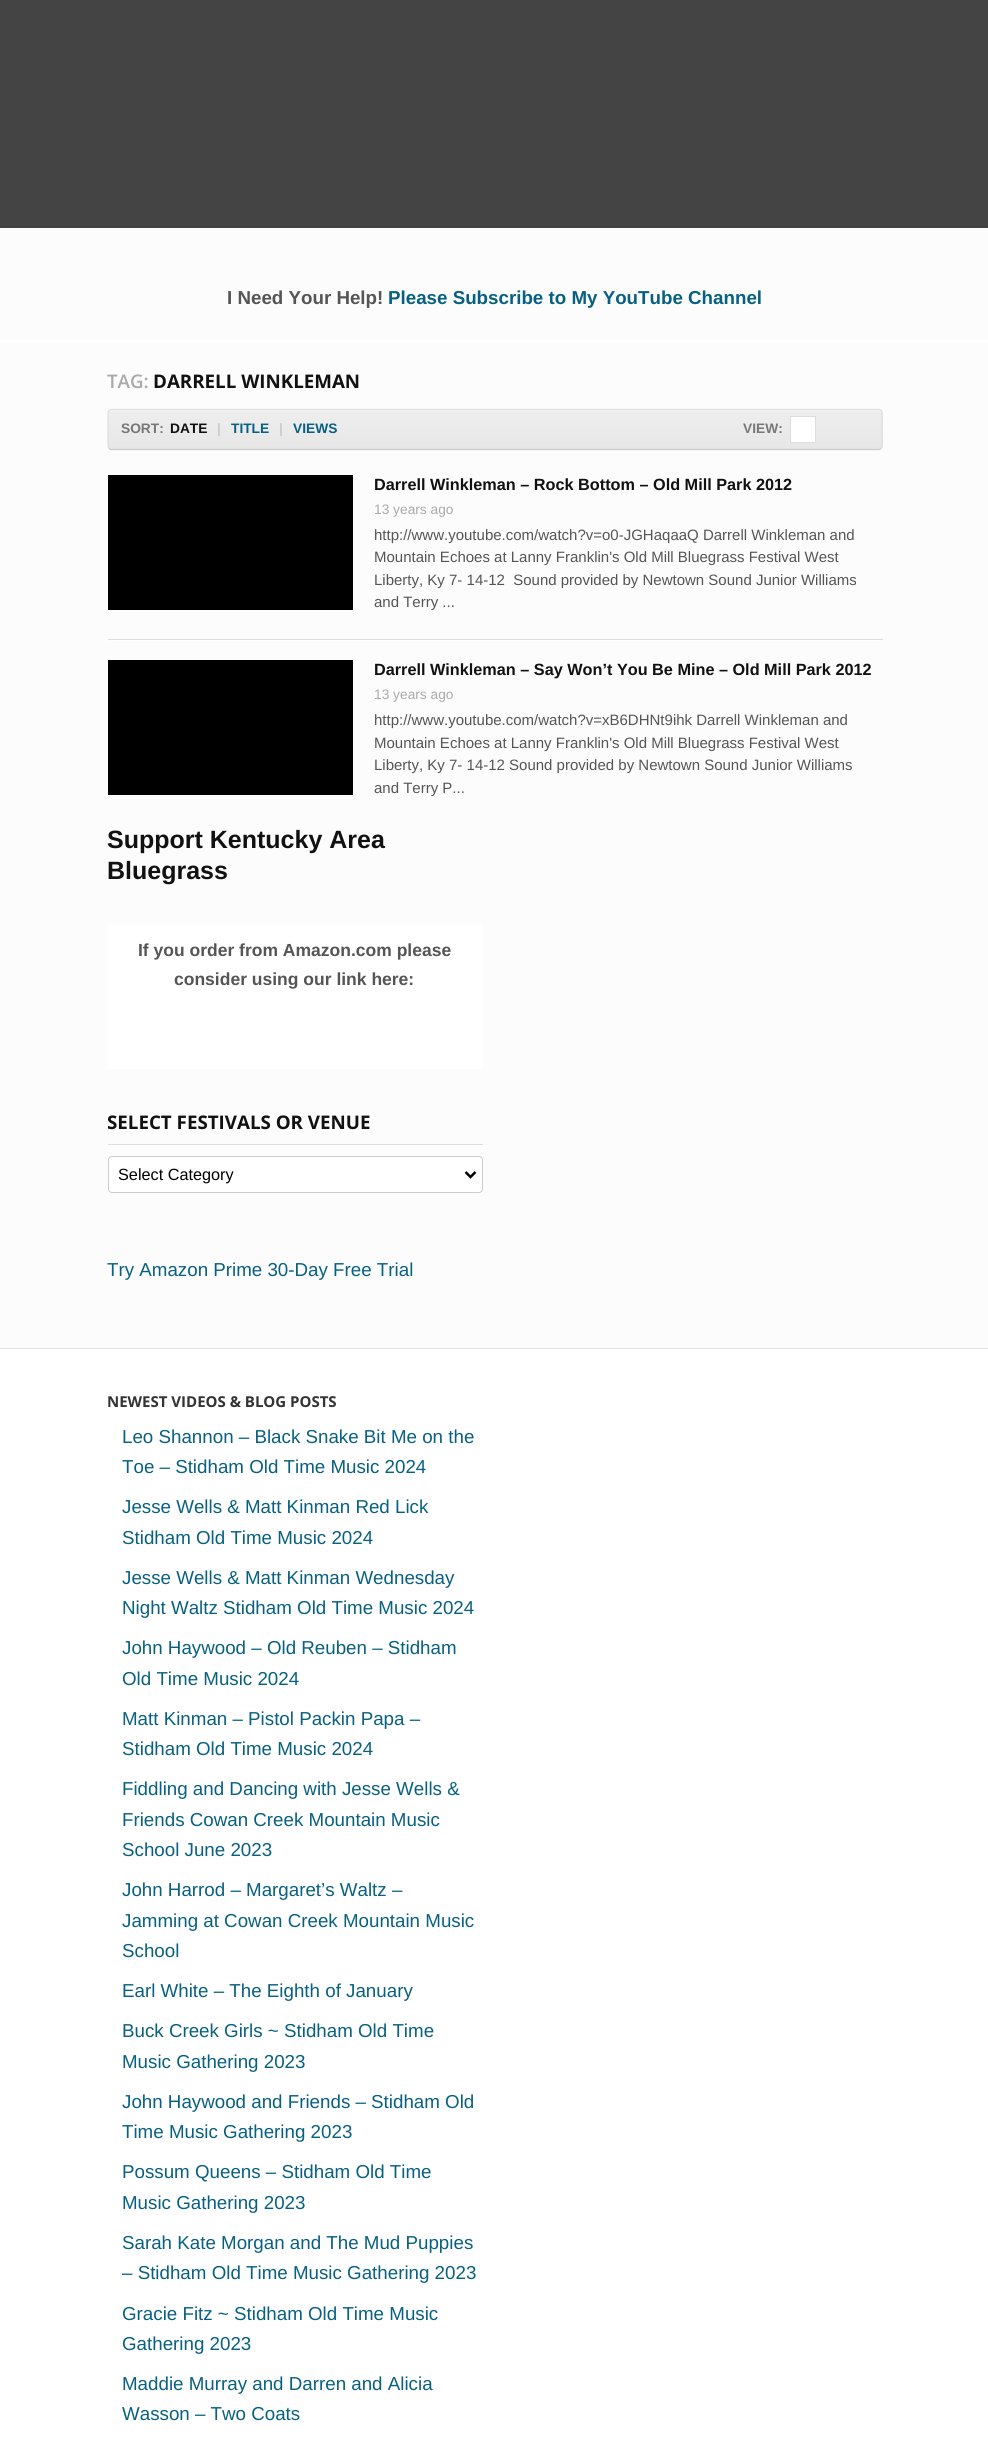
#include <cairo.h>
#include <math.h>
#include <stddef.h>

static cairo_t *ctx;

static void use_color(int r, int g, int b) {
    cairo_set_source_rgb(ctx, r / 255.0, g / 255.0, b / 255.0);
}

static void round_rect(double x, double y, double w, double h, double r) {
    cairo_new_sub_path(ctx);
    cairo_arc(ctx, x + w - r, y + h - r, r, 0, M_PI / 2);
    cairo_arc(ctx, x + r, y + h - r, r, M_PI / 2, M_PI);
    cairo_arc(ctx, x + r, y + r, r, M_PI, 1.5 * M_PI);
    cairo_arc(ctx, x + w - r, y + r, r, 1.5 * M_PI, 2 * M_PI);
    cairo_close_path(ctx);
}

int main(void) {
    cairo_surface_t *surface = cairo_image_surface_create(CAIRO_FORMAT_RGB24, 988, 2454);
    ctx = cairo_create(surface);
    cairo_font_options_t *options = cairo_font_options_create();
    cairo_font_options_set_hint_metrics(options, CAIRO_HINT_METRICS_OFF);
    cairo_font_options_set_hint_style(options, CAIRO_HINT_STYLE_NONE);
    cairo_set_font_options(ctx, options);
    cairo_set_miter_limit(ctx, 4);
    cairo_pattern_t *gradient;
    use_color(252, 252, 252);
    cairo_paint(ctx);
    use_color(68, 68, 68);
    cairo_rectangle(ctx, 0, 0, 988, 228);
    cairo_fill(ctx);
    use_color(64, 64, 64);
    cairo_rectangle(ctx, 0, 226, 988, 1);
    cairo_fill(ctx);
    cairo_select_font_face(ctx, "Liberation Sans", CAIRO_FONT_SLANT_NORMAL, CAIRO_FONT_WEIGHT_BOLD);
    cairo_set_font_size(ctx, 18.75);
    use_color(85, 85, 85);
    cairo_move_to(ctx, 227, 304);
    cairo_show_text(ctx, "I Need Your Help!");
    use_color(8, 96, 129);
    cairo_move_to(ctx, 388, 304);
    cairo_show_text(ctx, "Please Subscribe to My YouTube Channel");
    use_color(255, 255, 255);
    cairo_rectangle(ctx, 0, 339, 988, 3);
    cairo_fill(ctx);
    cairo_select_font_face(ctx, "Open Sans SemiBold", CAIRO_FONT_SLANT_NORMAL, CAIRO_FONT_WEIGHT_NORMAL);
    use_color(170, 170, 170);
    cairo_move_to(ctx, 107, 388);
    cairo_show_text(ctx, "TAG:");
    cairo_select_font_face(ctx, "Open Sans", CAIRO_FONT_SLANT_NORMAL, CAIRO_FONT_WEIGHT_BOLD);
    use_color(17, 17, 17);
    cairo_move_to(ctx, 153, 388);
    cairo_show_text(ctx, "DARRELL WINKLEMAN");
    cairo_save(ctx);
    round_rect(108, 409, 775, 41, 4);
    cairo_clip(ctx);
    gradient = cairo_pattern_create_linear(495, 371, 495, 410);
    cairo_pattern_add_color_stop_rgba(gradient, 0, 0.933, 0.933, 0.933, 1);
    cairo_pattern_add_color_stop_rgba(gradient, 1, 0.906, 0.906, 0.906, 1);
    cairo_set_source(ctx, gradient);
    cairo_pattern_destroy(gradient);
    cairo_rectangle(ctx, 108, 409, 775, 1);
    cairo_fill(ctx);
    gradient = cairo_pattern_create_linear(495, 410, 495, 449);
    cairo_pattern_add_color_stop_rgba(gradient, 0, 0.933, 0.933, 0.933, 1);
    cairo_pattern_add_color_stop_rgba(gradient, 1, 0.906, 0.906, 0.906, 1);
    cairo_set_source(ctx, gradient);
    cairo_pattern_destroy(gradient);
    cairo_rectangle(ctx, 108, 410, 775, 39);
    cairo_fill(ctx);
    gradient = cairo_pattern_create_linear(495, 449, 495, 488);
    cairo_pattern_add_color_stop_rgba(gradient, 0, 0.933, 0.933, 0.933, 1);
    cairo_pattern_add_color_stop_rgba(gradient, 1, 0.906, 0.906, 0.906, 1);
    cairo_set_source(ctx, gradient);
    cairo_pattern_destroy(gradient);
    cairo_rectangle(ctx, 108, 449, 775, 1);
    cairo_fill(ctx);
    cairo_restore(ctx);
    use_color(247, 247, 247);
    cairo_new_path(ctx);
    cairo_move_to(ctx, 111, 411);
    cairo_line_to(ctx, 879, 411);
    cairo_curve_to(ctx, 880, 411, 881, 412, 881, 414);
    cairo_line_to(ctx, 881, 412);
    cairo_curve_to(ctx, 881, 411, 880, 410, 878, 410);
    cairo_line_to(ctx, 112, 410);
    cairo_curve_to(ctx, 110, 410, 109, 411, 109, 412);
    cairo_line_to(ctx, 109, 414);
    cairo_curve_to(ctx, 109, 412, 110, 411, 111, 411);
    cairo_close_path(ctx);
    cairo_fill(ctx);
    cairo_new_path(ctx);
    cairo_move_to(ctx, 881, 448.5);
    cairo_line_to(ctx, 879, 449.5);
    cairo_line_to(ctx, 111, 449.5);
    cairo_line_to(ctx, 109, 448.5);
    use_color(204, 204, 204);
    cairo_set_line_width(ctx, 1.2);
    cairo_stroke(ctx);
    cairo_new_path(ctx);
    cairo_move_to(ctx, 109, 448.5);
    cairo_line_to(ctx, 108, 446);
    cairo_line_to(ctx, 108, 412.5);
    cairo_line_to(ctx, 109, 410.5);
    cairo_line_to(ctx, 111, 409.5);
    cairo_line_to(ctx, 879, 409.5);
    cairo_line_to(ctx, 881, 410.5);
    cairo_line_to(ctx, 882, 412.5);
    cairo_line_to(ctx, 882, 446);
    cairo_line_to(ctx, 881, 448.5);
    use_color(221, 221, 221);
    cairo_stroke(ctx);
    cairo_select_font_face(ctx, "Liberation Sans", CAIRO_FONT_SLANT_NORMAL, CAIRO_FONT_WEIGHT_BOLD);
    cairo_set_font_size(ctx, 13.75);
    use_color(119, 119, 119);
    cairo_move_to(ctx, 121, 433);
    cairo_show_text(ctx, "SORT:");
    use_color(17, 17, 17);
    cairo_move_to(ctx, 170, 433);
    cairo_show_text(ctx, "DATE");
    use_color(204, 204, 204);
    cairo_move_to(ctx, 217, 433);
    cairo_show_text(ctx, "|");
    use_color(8, 96, 129);
    cairo_move_to(ctx, 231, 433);
    cairo_show_text(ctx, "TITLE");
    use_color(204, 204, 204);
    cairo_move_to(ctx, 279, 433);
    cairo_show_text(ctx, "|");
    use_color(8, 96, 129);
    cairo_move_to(ctx, 293, 433);
    cairo_show_text(ctx, "VIEWS");
    use_color(119, 119, 119);
    cairo_move_to(ctx, 743, 433);
    cairo_show_text(ctx, "VIEW:");
    use_color(255, 255, 255);
    cairo_rectangle(ctx, 790.5, 416.5, 25, 26);
    cairo_fill_preserve(ctx);
    use_color(221, 221, 221);
    cairo_set_line_width(ctx, 1);
    cairo_stroke(ctx);
    cairo_rectangle(ctx, 108, 639, 775, 1);
    cairo_fill(ctx);
    use_color(0, 0, 0);
    cairo_rectangle(ctx, 108, 475, 245, 135);
    cairo_fill(ctx);
    cairo_set_font_size(ctx, 16.25);
    use_color(17, 17, 17);
    cairo_move_to(ctx, 374, 490);
    cairo_show_text(ctx, "Darrell Winkleman – Rock Bottom – Old Mill Park 2012");
    cairo_select_font_face(ctx, "Liberation Sans", CAIRO_FONT_SLANT_NORMAL, CAIRO_FONT_WEIGHT_NORMAL);
    cairo_set_font_size(ctx, 13.75);
    use_color(170, 170, 170);
    cairo_move_to(ctx, 374, 514);
    cairo_show_text(ctx, "13 years ago");
    cairo_set_font_size(ctx, 15);
    use_color(85, 85, 85);
    cairo_move_to(ctx, 374, 540);
    cairo_show_text(ctx, "http://www.youtube.com/watch?v=o0-JGHaqaaQ Darrell Winkleman and");
    cairo_move_to(ctx, 374, 562);
    cairo_show_text(ctx, "Mountain Echoes at Lanny Franklin's Old Mill Bluegrass Festival West");
    cairo_move_to(ctx, 374, 585);
    cairo_show_text(ctx, "Liberty, Ky 7- 14-12  Sound provided by Newtown Sound Junior Williams");
    cairo_move_to(ctx, 374, 607);
    cairo_show_text(ctx, "and Terry ...");
    use_color(255, 255, 255);
    cairo_rectangle(ctx, 108, 640, 775, 1);
    cairo_fill(ctx);
    use_color(0, 0, 0);
    cairo_rectangle(ctx, 108, 660, 245, 135);
    cairo_fill(ctx);
    cairo_select_font_face(ctx, "Liberation Sans", CAIRO_FONT_SLANT_NORMAL, CAIRO_FONT_WEIGHT_BOLD);
    cairo_set_font_size(ctx, 16.25);
    use_color(17, 17, 17);
    cairo_move_to(ctx, 374, 675);
    cairo_show_text(ctx, "Darrell Winkleman – Say Won’t You Be Mine – Old Mill Park 2012");
    cairo_select_font_face(ctx, "Liberation Sans", CAIRO_FONT_SLANT_NORMAL, CAIRO_FONT_WEIGHT_NORMAL);
    cairo_set_font_size(ctx, 13.75);
    use_color(170, 170, 170);
    cairo_move_to(ctx, 374, 699);
    cairo_show_text(ctx, "13 years ago");
    cairo_set_font_size(ctx, 15);
    use_color(85, 85, 85);
    cairo_move_to(ctx, 374, 725);
    cairo_show_text(ctx, "http://www.youtube.com/watch?v=xB6DHNt9ihk Darrell Winkleman and");
    cairo_move_to(ctx, 374, 748);
    cairo_show_text(ctx, "Mountain Echoes at Lanny Franklin's Old Mill Bluegrass Festival West");
    cairo_move_to(ctx, 374, 770);
    cairo_show_text(ctx, "Liberty, Ky 7- 14-12 Sound provided by Newtown Sound Junior Williams");
    cairo_move_to(ctx, 374, 793);
    cairo_show_text(ctx, "and Terry P...");
    cairo_select_font_face(ctx, "Liberation Sans", CAIRO_FONT_SLANT_NORMAL, CAIRO_FONT_WEIGHT_BOLD);
    cairo_set_font_size(ctx, 25);
    use_color(17, 17, 17);
    cairo_move_to(ctx, 107, 848);
    cairo_show_text(ctx, "Support Kentucky Area");
    cairo_move_to(ctx, 107, 879);
    cairo_show_text(ctx, "Bluegrass");
    use_color(255, 255, 255);
    cairo_rectangle(ctx, 108, 924, 375, 145);
    cairo_fill(ctx);
    cairo_set_font_size(ctx, 17.5);
    use_color(85, 85, 85);
    cairo_move_to(ctx, 138, 956);
    cairo_show_text(ctx, "If you order from Amazon.com please");
    cairo_move_to(ctx, 174, 985);
    cairo_show_text(ctx, "consider using our link here:");
    use_color(255, 255, 255);
    cairo_rectangle(ctx, 108, 1145, 375, 1);
    cairo_fill(ctx);
    use_color(221, 221, 221);
    cairo_rectangle(ctx, 108, 1144, 375, 1);
    cairo_fill(ctx);
    cairo_save(ctx);
    cairo_rectangle(ctx, 108, 1106, 375, 112);
    cairo_clip(ctx);
    cairo_select_font_face(ctx, "Open Sans", CAIRO_FONT_SLANT_NORMAL, CAIRO_FONT_WEIGHT_BOLD);
    cairo_set_font_size(ctx, 18.75);
    use_color(17, 17, 17);
    cairo_move_to(ctx, 107, 1129);
    cairo_show_text(ctx, "SELECT FESTIVALS OR VENUE");
    cairo_restore(ctx);
    use_color(255, 255, 255);
    round_rect(108.5, 1156.5, 374, 36, 3.5);
    cairo_fill_preserve(ctx);
    use_color(204, 204, 204);
    cairo_stroke(ctx);
    cairo_new_path(ctx);
    cairo_move_to(ctx, 465.5, 1172);
    cairo_line_to(ctx, 470.5, 1177);
    cairo_line_to(ctx, 475.5, 1172);
    use_color(0, 0, 0);
    cairo_set_line_width(ctx, 2.5);
    cairo_stroke(ctx);
    cairo_select_font_face(ctx, "Liberation Sans", CAIRO_FONT_SLANT_NORMAL, CAIRO_FONT_WEIGHT_NORMAL);
    cairo_set_font_size(ctx, 16.25);
    cairo_move_to(ctx, 118, 1180);
    cairo_show_text(ctx, "Select Category");
    cairo_set_font_size(ctx, 18.75);
    use_color(8, 96, 129);
    cairo_move_to(ctx, 107, 1276);
    cairo_show_text(ctx, "Try Amazon Prime 30-Day Free Trial");
    use_color(255, 255, 255);
    cairo_rectangle(ctx, 0, 1349, 988, 1105);
    cairo_fill(ctx);
    use_color(227, 227, 227);
    cairo_rectangle(ctx, 0, 1348, 988, 1);
    cairo_fill(ctx);
    cairo_select_font_face(ctx, "Open Sans", CAIRO_FONT_SLANT_NORMAL, CAIRO_FONT_WEIGHT_BOLD);
    cairo_set_font_size(ctx, 15);
    use_color(51, 51, 51);
    cairo_move_to(ctx, 107, 1407);
    cairo_show_text(ctx, "NEWEST VIDEOS & BLOG POSTS");
    cairo_select_font_face(ctx, "Liberation Sans", CAIRO_FONT_SLANT_NORMAL, CAIRO_FONT_WEIGHT_NORMAL);
    cairo_set_font_size(ctx, 18.75);
    use_color(8, 96, 129);
    cairo_move_to(ctx, 122, 1443);
    cairo_show_text(ctx, "Leo Shannon – Black Snake Bit Me on the");
    cairo_move_to(ctx, 122, 1473);
    cairo_show_text(ctx, "Toe – Stidham Old Time Music 2024");
    cairo_move_to(ctx, 122, 1513);
    cairo_show_text(ctx, "Jesse Wells & Matt Kinman Red Lick");
    cairo_move_to(ctx, 122, 1544);
    cairo_show_text(ctx, "Stidham Old Time Music 2024");
    cairo_move_to(ctx, 122, 1584);
    cairo_show_text(ctx, "Jesse Wells & Matt Kinman Wednesday");
    cairo_move_to(ctx, 122, 1614);
    cairo_show_text(ctx, "Night Waltz Stidham Old Time Music 2024");
    cairo_move_to(ctx, 122, 1654);
    cairo_show_text(ctx, "John Haywood – Old Reuben – Stidham");
    cairo_move_to(ctx, 122, 1685);
    cairo_show_text(ctx, "Old Time Music 2024");
    cairo_move_to(ctx, 122, 1725);
    cairo_show_text(ctx, "Matt Kinman – Pistol Packin Papa –");
    cairo_move_to(ctx, 122, 1755);
    cairo_show_text(ctx, "Stidham Old Time Music 2024");
    cairo_move_to(ctx, 122, 1795);
    cairo_show_text(ctx, "Fiddling and Dancing with Jesse Wells &");
    cairo_move_to(ctx, 122, 1826);
    cairo_show_text(ctx, "Friends Cowan Creek Mountain Music");
    cairo_move_to(ctx, 122, 1856);
    cairo_show_text(ctx, "School June 2023");
    cairo_move_to(ctx, 122, 1896);
    cairo_show_text(ctx, "John Harrod – Margaret’s Waltz –");
    cairo_move_to(ctx, 122, 1927);
    cairo_show_text(ctx, "Jamming at Cowan Creek Mountain Music");
    cairo_move_to(ctx, 122, 1957);
    cairo_show_text(ctx, "School");
    cairo_move_to(ctx, 122, 1997);
    cairo_show_text(ctx, "Earl White – The Eighth of January");
    cairo_move_to(ctx, 122, 2037);
    cairo_show_text(ctx, "Buck Creek Girls ~ Stidham Old Time");
    cairo_move_to(ctx, 122, 2068);
    cairo_show_text(ctx, "Music Gathering 2023");
    cairo_move_to(ctx, 122, 2108);
    cairo_show_text(ctx, "John Haywood and Friends – Stidham Old");
    cairo_move_to(ctx, 122, 2138);
    cairo_show_text(ctx, "Time Music Gathering 2023");
    cairo_move_to(ctx, 122, 2178);
    cairo_show_text(ctx, "Possum Queens – Stidham Old Time");
    cairo_move_to(ctx, 122, 2209);
    cairo_show_text(ctx, "Music Gathering 2023");
    cairo_move_to(ctx, 122, 2249);
    cairo_show_text(ctx, "Sarah Kate Morgan and The Mud Puppies");
    cairo_move_to(ctx, 122, 2279);
    cairo_show_text(ctx, "– Stidham Old Time Music Gathering 2023");
    cairo_move_to(ctx, 122, 2320);
    cairo_show_text(ctx, "Gracie Fitz ~ Stidham Old Time Music");
    cairo_move_to(ctx, 122, 2350);
    cairo_show_text(ctx, "Gathering 2023");
    cairo_move_to(ctx, 122, 2390);
    cairo_show_text(ctx, "Maddie Murray and Darren and Alicia");
    cairo_move_to(ctx, 122, 2420);
    cairo_show_text(ctx, "Wasson – Two Coats");
    cairo_surface_write_to_png(surface, "result.png");
    cairo_font_options_destroy(options);
    cairo_destroy(ctx);
    cairo_surface_destroy(surface);
    return 0;
}
